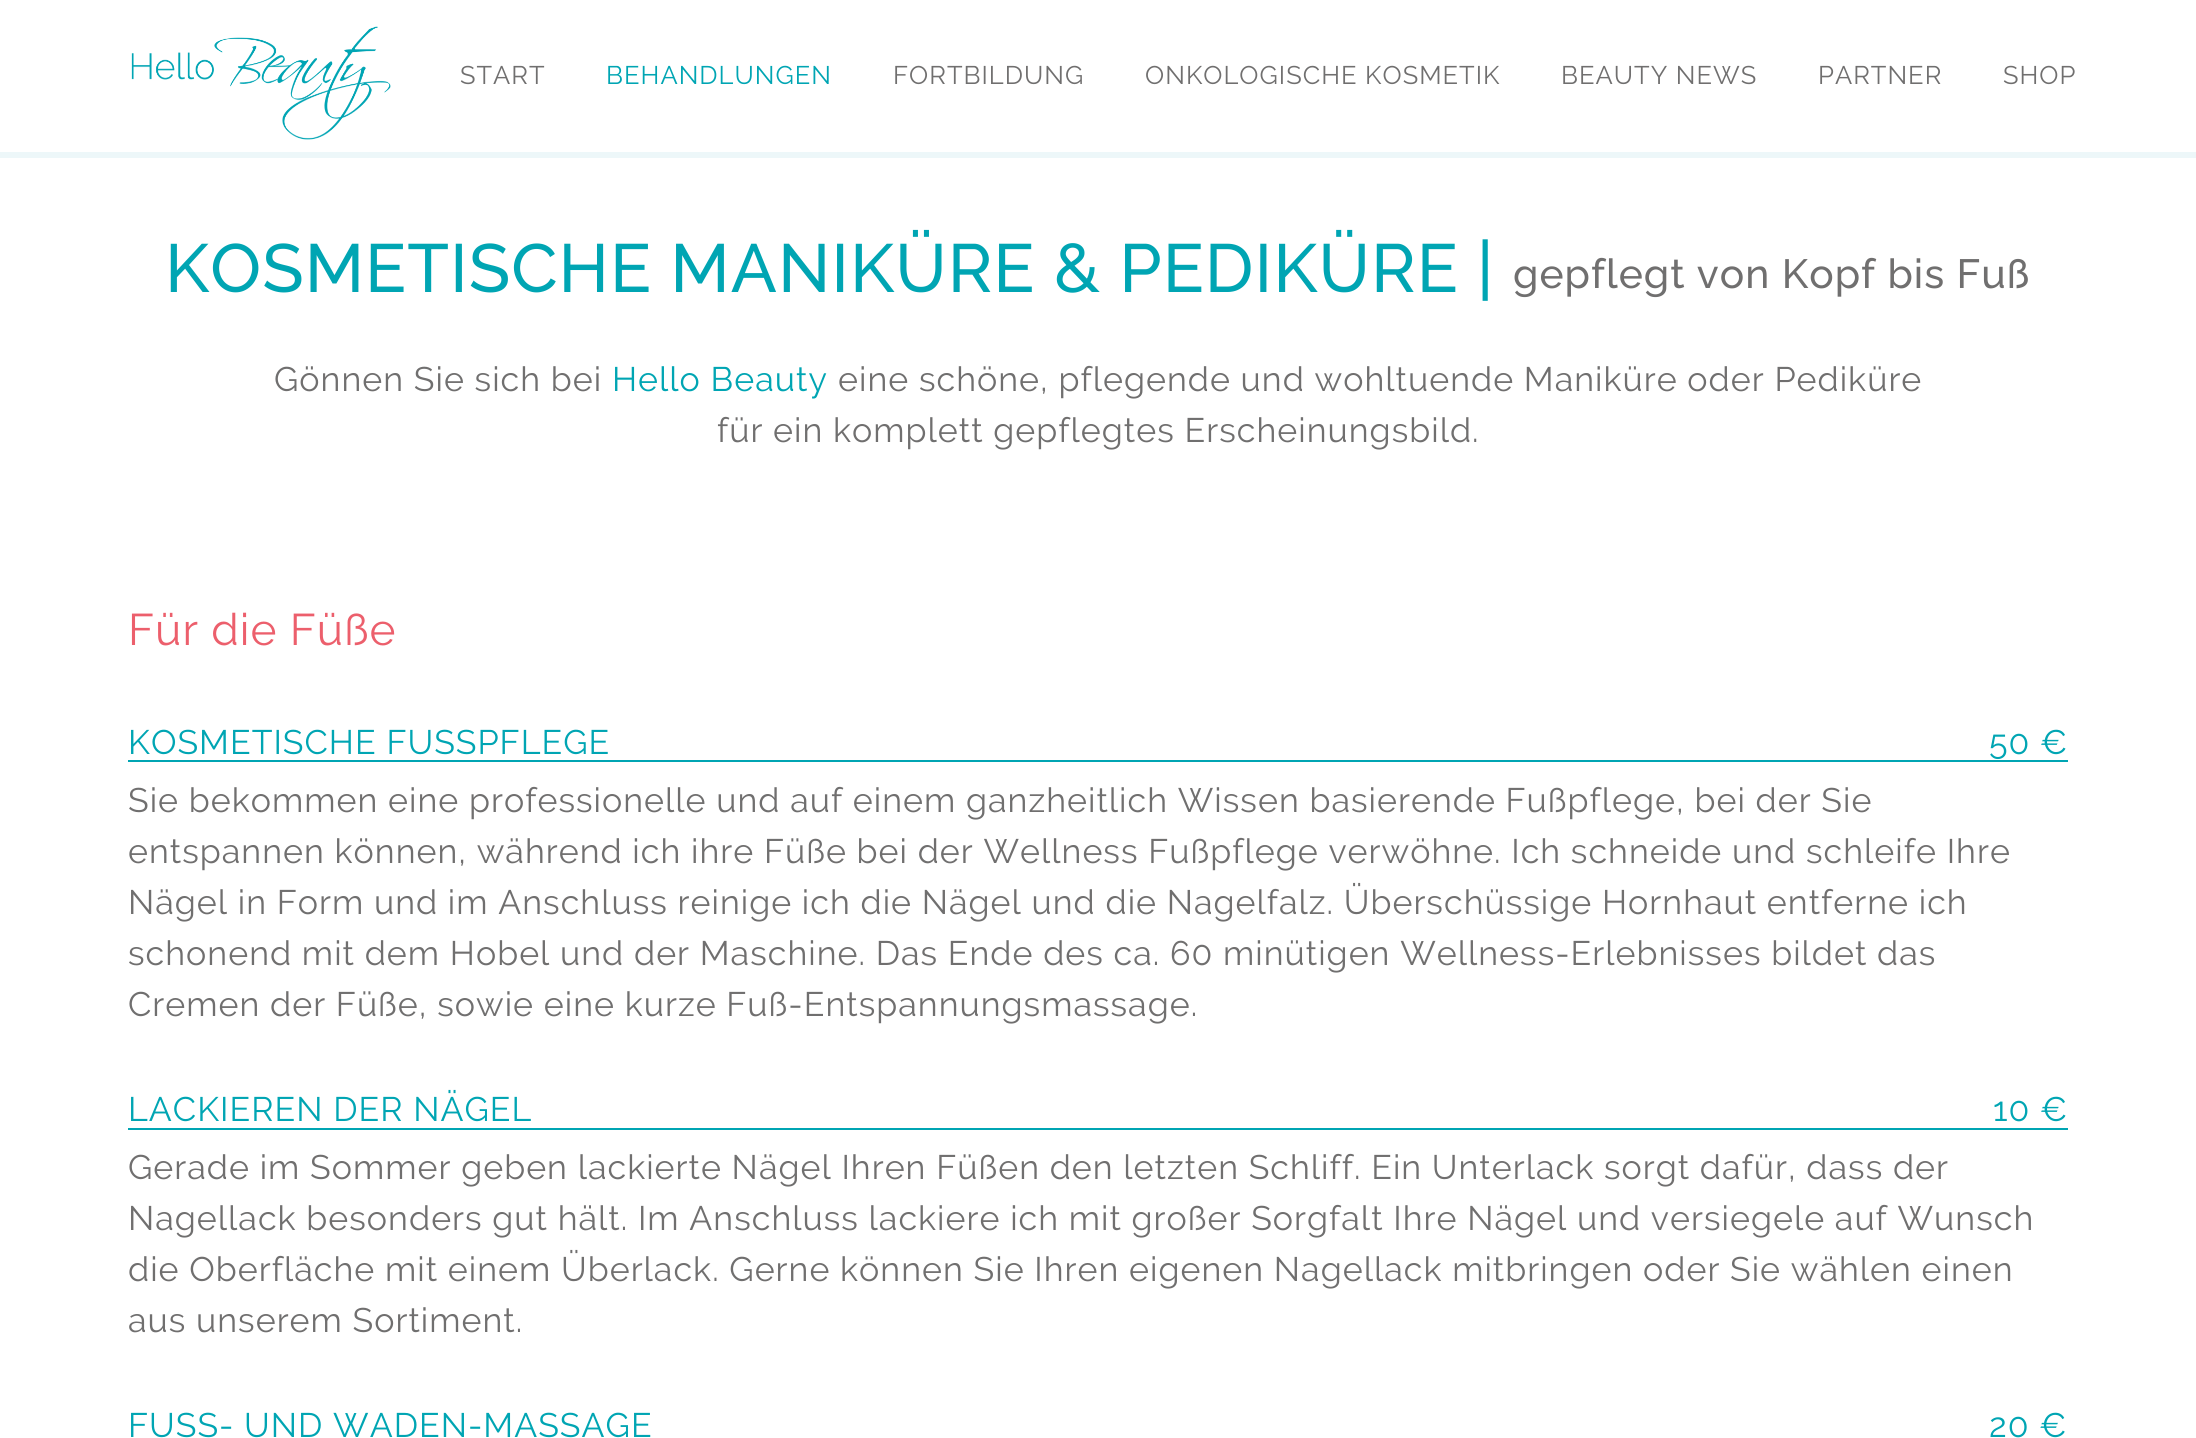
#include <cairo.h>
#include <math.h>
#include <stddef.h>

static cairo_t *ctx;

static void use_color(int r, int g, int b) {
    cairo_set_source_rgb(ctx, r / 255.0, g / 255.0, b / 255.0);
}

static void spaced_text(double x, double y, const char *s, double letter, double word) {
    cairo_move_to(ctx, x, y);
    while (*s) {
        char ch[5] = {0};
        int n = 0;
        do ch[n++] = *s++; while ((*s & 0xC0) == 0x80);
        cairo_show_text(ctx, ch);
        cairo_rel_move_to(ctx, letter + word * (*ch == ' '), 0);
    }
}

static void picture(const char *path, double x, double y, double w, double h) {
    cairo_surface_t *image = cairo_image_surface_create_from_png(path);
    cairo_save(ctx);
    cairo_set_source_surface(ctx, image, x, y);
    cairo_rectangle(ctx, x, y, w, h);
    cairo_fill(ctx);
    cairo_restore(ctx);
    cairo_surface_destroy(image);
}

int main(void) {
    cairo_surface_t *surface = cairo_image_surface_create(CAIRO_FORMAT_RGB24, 2196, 1438);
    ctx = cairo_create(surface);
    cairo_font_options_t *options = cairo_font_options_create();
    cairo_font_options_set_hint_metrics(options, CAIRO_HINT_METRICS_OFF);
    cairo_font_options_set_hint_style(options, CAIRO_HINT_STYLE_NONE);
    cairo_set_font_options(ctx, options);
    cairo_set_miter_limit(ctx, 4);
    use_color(255, 255, 255);
    cairo_paint(ctx);
    use_color(237, 247, 249);
    cairo_rectangle(ctx, 0, 152, 2196, 6);
    cairo_fill(ctx);
    picture("img1.png", 131, 26, 260, 114);
    cairo_select_font_face(ctx, "Raleway", CAIRO_FONT_SLANT_NORMAL, CAIRO_FONT_WEIGHT_NORMAL);
    cairo_set_font_size(ctx, 25.5);
    use_color(112, 111, 111);
    spaced_text(460, 84, "START", 1.02, 0);
    use_color(0, 165, 179);
    spaced_text(606, 84, "BEHANDLUNGEN", 1.02, 0);
    use_color(112, 111, 111);
    spaced_text(893, 84, "FORTBILDUNG", 1.02, 0);
    spaced_text(1145, 84, "ONKOLOGISCHE KOSMETIK", 1.02, 0);
    spaced_text(1561, 84, "BEAUTY NEWS", 1.02, 0);
    spaced_text(1818, 84, "PARTNER", 1.02, 0);
    spaced_text(2003, 84, "SHOP", 1.02, 0);
    cairo_select_font_face(ctx, "Raleway Medium", CAIRO_FONT_SLANT_NORMAL, CAIRO_FONT_WEIGHT_NORMAL);
    cairo_set_font_size(ctx, 68);
    use_color(0, 165, 179);
    spaced_text(165, 292, "KOSMETISCHE MANIKÜRE & PEDIKÜRE |", 1.02, 0);
    cairo_set_font_size(ctx, 40.75);
    use_color(112, 111, 111);
    spaced_text(1513, 288, "gepflegt von Kopf bis Fuß", 1.02, 0);
    cairo_select_font_face(ctx, "Raleway", CAIRO_FONT_SLANT_NORMAL, CAIRO_FONT_WEIGHT_NORMAL);
    cairo_set_font_size(ctx, 34);
    spaced_text(274, 391, "Gönnen Sie sich bei", 1.02, 0);
    use_color(0, 165, 179);
    spaced_text(612, 391, "Hello Beauty", 1.02, 0);
    use_color(112, 111, 111);
    spaced_text(838, 391, "eine schöne, pflegende und wohltuende Maniküre oder Pediküre", 1.02, 0);
    spaced_text(717, 442, "für ein komplett gepflegtes Erscheinungsbild.", 1.02, 0);
    cairo_set_font_size(ctx, 44.25);
    use_color(236, 95, 108);
    spaced_text(128, 645, "Für die Füße", 1.02, 0);
    cairo_set_font_size(ctx, 34);
    use_color(0, 165, 179);
    spaced_text(128, 754, "KOSMETISCHE FUSSPFLEGE", 1.02, 0);
    spaced_text(1989, 754, "50 €", 1.02, 0);
    cairo_rectangle(ctx, 128, 760, 1940, 2);
    cairo_fill(ctx);
    use_color(112, 111, 111);
    spaced_text(128, 812, "Sie bekommen eine professionelle und auf einem ganzheitlich Wissen basierende Fußpflege, bei der Sie", 1.02, 0);
    spaced_text(128, 863, "entspannen können, während ich ihre Füße bei der Wellness Fußpflege verwöhne. Ich schneide und schleife Ihre", 1.02, 0);
    spaced_text(128, 914, "Nägel in Form und im Anschluss reinige ich die Nägel und die Nagelfalz. Überschüssige Hornhaut entferne ich", 1.02, 0);
    spaced_text(128, 965, "schonend mit dem Hobel und der Maschine. Das Ende des ca. 60 minütigen Wellness-Erlebnisses bildet das", 1.02, 0);
    spaced_text(128, 1016, "Cremen der Füße, sowie eine kurze Fuß-Entspannungsmassage.", 1.02, 0);
    use_color(0, 165, 179);
    spaced_text(128, 1121, "LACKIEREN DER NÄGEL", 1.02, 0);
    spaced_text(1993, 1121, "10 €", 1.02, 0);
    cairo_rectangle(ctx, 128, 1128, 1940, 2);
    cairo_fill(ctx);
    use_color(112, 111, 111);
    spaced_text(128, 1179, "Gerade im Sommer geben lackierte Nägel Ihren Füßen den letzten Schliff. Ein Unterlack sorgt dafür, dass der", 1.02, 0);
    spaced_text(128, 1230, "Nagellack besonders gut hält. Im Anschluss lackiere ich mit großer Sorgfalt Ihre Nägel und versiegele auf Wunsch", 1.02, 0);
    spaced_text(128, 1281, "die Oberfläche mit einem Überlack. Gerne können Sie Ihren eigenen Nagellack mitbringen oder Sie wählen einen", 1.02, 0);
    spaced_text(128, 1332, "aus unserem Sortiment.", 1.02, 0);
    use_color(0, 165, 179);
    spaced_text(128, 1437, "FUSS- UND WADEN-MASSAGE", 1.02, 0);
    spaced_text(1989, 1437, "20 €", 1.02, 0);
    cairo_surface_write_to_png(surface, "result.png");
    cairo_font_options_destroy(options);
    cairo_destroy(ctx);
    cairo_surface_destroy(surface);
    return 0;
}
